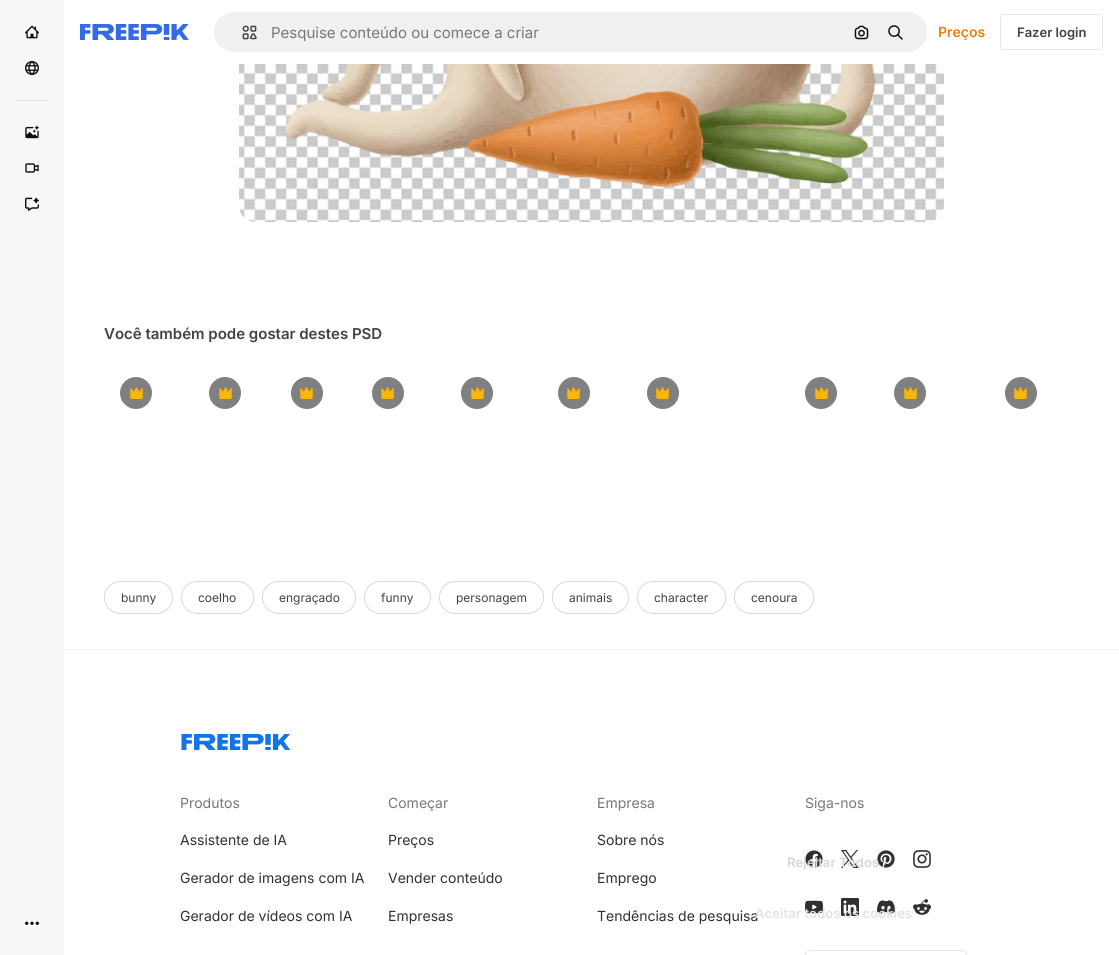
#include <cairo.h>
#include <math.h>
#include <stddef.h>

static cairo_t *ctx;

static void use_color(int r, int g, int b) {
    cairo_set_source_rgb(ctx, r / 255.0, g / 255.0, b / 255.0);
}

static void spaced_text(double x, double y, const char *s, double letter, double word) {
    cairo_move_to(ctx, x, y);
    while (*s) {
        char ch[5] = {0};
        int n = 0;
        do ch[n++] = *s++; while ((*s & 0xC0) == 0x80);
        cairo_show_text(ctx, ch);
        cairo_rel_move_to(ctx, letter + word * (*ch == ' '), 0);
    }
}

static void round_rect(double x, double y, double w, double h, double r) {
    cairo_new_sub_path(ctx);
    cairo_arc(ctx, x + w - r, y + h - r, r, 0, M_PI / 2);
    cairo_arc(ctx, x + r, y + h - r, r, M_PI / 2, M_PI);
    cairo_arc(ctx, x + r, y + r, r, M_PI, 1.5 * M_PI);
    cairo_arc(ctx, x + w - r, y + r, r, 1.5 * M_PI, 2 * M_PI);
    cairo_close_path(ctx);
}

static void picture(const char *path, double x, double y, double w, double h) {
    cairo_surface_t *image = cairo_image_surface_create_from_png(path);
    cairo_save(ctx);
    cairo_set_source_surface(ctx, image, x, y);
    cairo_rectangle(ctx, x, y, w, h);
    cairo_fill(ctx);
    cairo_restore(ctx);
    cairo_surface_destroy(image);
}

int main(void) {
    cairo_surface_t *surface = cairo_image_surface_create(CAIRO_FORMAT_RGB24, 1119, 955);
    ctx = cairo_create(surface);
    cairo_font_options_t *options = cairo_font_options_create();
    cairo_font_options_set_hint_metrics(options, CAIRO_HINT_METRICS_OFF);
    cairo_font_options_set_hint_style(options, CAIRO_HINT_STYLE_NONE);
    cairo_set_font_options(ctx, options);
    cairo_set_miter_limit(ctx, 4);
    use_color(255, 255, 255);
    cairo_paint(ctx);
    use_color(247, 247, 247);
    cairo_rectangle(ctx, 0, 0, 64, 955);
    cairo_fill(ctx);
    picture("img1.png", 25, 25, 14, 14);
    picture("img2.png", 25, 61, 14, 14);
    use_color(224, 224, 224);
    cairo_rectangle(ctx, 16, 100, 32, 1);
    cairo_fill(ctx);
    picture("img3.png", 25, 125, 14, 14);
    picture("img4.png", 25, 163, 14, 10);
    picture("img5.png", 25, 197, 14, 14);
    picture("img6.png", 25, 921, 14, 4);
    picture("img7.png", 80, 24, 109, 16);
    use_color(240, 240, 240);
    round_rect(213.5, 11.5, 714, 41, 20.5);
    cairo_fill_preserve(ctx);
    use_color(255, 255, 255);
    cairo_set_line_width(ctx, 1);
    cairo_stroke(ctx);
    picture("img8.png", 242, 25, 15, 15);
    cairo_select_font_face(ctx, "Inter", CAIRO_FONT_SLANT_NORMAL, CAIRO_FONT_WEIGHT_NORMAL);
    cairo_set_font_size(ctx, 15);
    use_color(119, 119, 119);
    cairo_move_to(ctx, 271, 38);
    cairo_show_text(ctx, "Pesquise conteúdo ou comece a criar");
    picture("img9.png", 854, 25, 15, 15);
    picture("img10.png", 888, 25, 15, 15);
    cairo_select_font_face(ctx, "Inter SemiBold", CAIRO_FONT_SLANT_NORMAL, CAIRO_FONT_WEIGHT_NORMAL);
    cairo_set_font_size(ctx, 14);
    use_color(234, 126, 17);
    cairo_move_to(ctx, 938, 37);
    cairo_show_text(ctx, "Preços");
    round_rect(1000.5, 14.5, 102, 35, 3.5);
    use_color(231, 231, 231);
    cairo_stroke(ctx);
    cairo_set_font_size(ctx, 13);
    use_color(66, 66, 66);
    cairo_move_to(ctx, 1017, 37);
    cairo_show_text(ctx, "Fazer login");
    picture("img11.png", 239, 64, 705, 158);
    cairo_set_font_size(ctx, 15);
    cairo_move_to(ctx, 104, 339);
    cairo_show_text(ctx, "Você também pode gostar destes PSD");
    use_color(128, 128, 128);
    cairo_new_path(ctx);
    cairo_arc(ctx, 136, 393, 16, 0, 2 * M_PI);
    cairo_fill(ctx);
    picture("img12.png", 130, 387, 13, 12);
    cairo_arc(ctx, 225, 393, 16, 0, 2 * M_PI);
    cairo_fill(ctx);
    picture("img12.png", 219, 387, 13, 12);
    cairo_arc(ctx, 307, 393, 16, 0, 2 * M_PI);
    cairo_fill(ctx);
    picture("img12.png", 300, 387, 13, 12);
    cairo_arc(ctx, 388, 393, 16, 0, 2 * M_PI);
    cairo_fill(ctx);
    picture("img12.png", 381, 387, 13, 12);
    cairo_arc(ctx, 477, 393, 16, 0, 2 * M_PI);
    cairo_fill(ctx);
    picture("img12.png", 471, 387, 13, 12);
    cairo_arc(ctx, 574, 393, 16, 0, 2 * M_PI);
    cairo_fill(ctx);
    picture("img12.png", 567, 387, 13, 12);
    cairo_arc(ctx, 663, 393, 16, 0, 2 * M_PI);
    cairo_fill(ctx);
    picture("img12.png", 656, 387, 13, 12);
    cairo_arc(ctx, 821, 393, 16, 0, 2 * M_PI);
    cairo_fill(ctx);
    picture("img12.png", 815, 387, 13, 12);
    cairo_arc(ctx, 910, 393, 16, 0, 2 * M_PI);
    cairo_fill(ctx);
    picture("img12.png", 904, 387, 13, 12);
    cairo_arc(ctx, 1021, 393, 16, 0, 2 * M_PI);
    cairo_fill(ctx);
    picture("img12.png", 1014, 387, 13, 12);
    round_rect(104.5, 581.5, 68, 32, 16);
    use_color(216, 216, 216);
    cairo_stroke(ctx);
    cairo_select_font_face(ctx, "Inter", CAIRO_FONT_SLANT_NORMAL, CAIRO_FONT_WEIGHT_NORMAL);
    cairo_set_font_size(ctx, 12);
    use_color(66, 66, 66);
    cairo_move_to(ctx, 121, 602);
    cairo_show_text(ctx, "bunny");
    round_rect(181.5, 581.5, 72, 32, 16);
    use_color(216, 216, 216);
    cairo_stroke(ctx);
    use_color(66, 66, 66);
    cairo_move_to(ctx, 198, 602);
    cairo_show_text(ctx, "coelho");
    round_rect(262.5, 581.5, 93, 32, 16);
    use_color(216, 216, 216);
    cairo_stroke(ctx);
    use_color(66, 66, 66);
    cairo_move_to(ctx, 279, 602);
    cairo_show_text(ctx, "engraçado");
    round_rect(364.5, 581.5, 66, 32, 16);
    use_color(216, 216, 216);
    cairo_stroke(ctx);
    use_color(66, 66, 66);
    cairo_move_to(ctx, 381, 602);
    cairo_show_text(ctx, "funny");
    round_rect(439.5, 581.5, 104, 32, 16);
    use_color(216, 216, 216);
    cairo_stroke(ctx);
    use_color(66, 66, 66);
    cairo_move_to(ctx, 456, 602);
    cairo_show_text(ctx, "personagem");
    round_rect(552.5, 581.5, 76, 32, 16);
    use_color(216, 216, 216);
    cairo_stroke(ctx);
    use_color(66, 66, 66);
    cairo_move_to(ctx, 569, 602);
    cairo_show_text(ctx, "animais");
    round_rect(637.5, 581.5, 88, 32, 16);
    use_color(216, 216, 216);
    cairo_stroke(ctx);
    use_color(66, 66, 66);
    cairo_move_to(ctx, 654, 602);
    cairo_show_text(ctx, "character");
    round_rect(734.5, 581.5, 79, 32, 16);
    use_color(216, 216, 216);
    cairo_stroke(ctx);
    use_color(66, 66, 66);
    cairo_move_to(ctx, 751, 602);
    cairo_show_text(ctx, "cenoura");
    use_color(240, 240, 240);
    cairo_rectangle(ctx, 64, 649, 1055, 1);
    cairo_fill(ctx);
    picture("img13.png", 181, 734, 109, 16);
    cairo_set_font_size(ctx, 14);
    use_color(119, 119, 119);
    cairo_move_to(ctx, 180, 808);
    cairo_show_text(ctx, "Produtos");
    use_color(48, 48, 48);
    cairo_move_to(ctx, 180, 845);
    cairo_show_text(ctx, "Assistente de IA");
    cairo_move_to(ctx, 180, 883);
    cairo_show_text(ctx, "Gerador de imagens com IA");
    cairo_move_to(ctx, 180, 921);
    cairo_show_text(ctx, "Gerador de vídeos com IA");
    use_color(119, 119, 119);
    cairo_move_to(ctx, 388, 808);
    cairo_show_text(ctx, "Começar");
    use_color(48, 48, 48);
    cairo_move_to(ctx, 388, 845);
    cairo_show_text(ctx, "Preços");
    cairo_move_to(ctx, 388, 883);
    cairo_show_text(ctx, "Vender conteúdo");
    cairo_move_to(ctx, 388, 921);
    cairo_show_text(ctx, "Empresas");
    use_color(119, 119, 119);
    cairo_move_to(ctx, 597, 808);
    cairo_show_text(ctx, "Empresa");
    use_color(48, 48, 48);
    cairo_move_to(ctx, 597, 845);
    cairo_show_text(ctx, "Sobre nós");
    cairo_move_to(ctx, 597, 883);
    cairo_show_text(ctx, "Emprego");
    cairo_move_to(ctx, 597, 921);
    cairo_show_text(ctx, "Tendências de pesquisa");
    use_color(119, 119, 119);
    cairo_move_to(ctx, 805, 808);
    cairo_show_text(ctx, "Siga-nos");
    picture("img14.png", 805, 850, 18, 18);
    picture("img15.png", 841, 850, 18, 18);
    picture("img16.png", 877, 850, 18, 18);
    picture("img17.png", 913, 850, 18, 18);
    picture("img18.png", 805, 900, 18, 14);
    picture("img19.png", 841, 898, 18, 18);
    picture("img20.png", 877, 900, 18, 14);
    picture("img21.png", 913, 899, 18, 16);
    round_rect(804.5, 950.5, 163, 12, 6.5);
    use_color(230, 230, 230);
    cairo_stroke(ctx);
    cairo_select_font_face(ctx, "Inter SemiBold", CAIRO_FONT_SLANT_NORMAL, CAIRO_FONT_WEIGHT_NORMAL);
    cairo_set_font_size(ctx, 13);
    use_color(215, 215, 215);
    spaced_text(787, 867, "Rejeitar Todos", 0.1, 0);
    use_color(226, 226, 226);
    spaced_text(755, 918, "Aceitar todos os cookies", 0.1, 0);
    cairo_surface_write_to_png(surface, "result.png");
    cairo_font_options_destroy(options);
    cairo_destroy(ctx);
    cairo_surface_destroy(surface);
    return 0;
}
